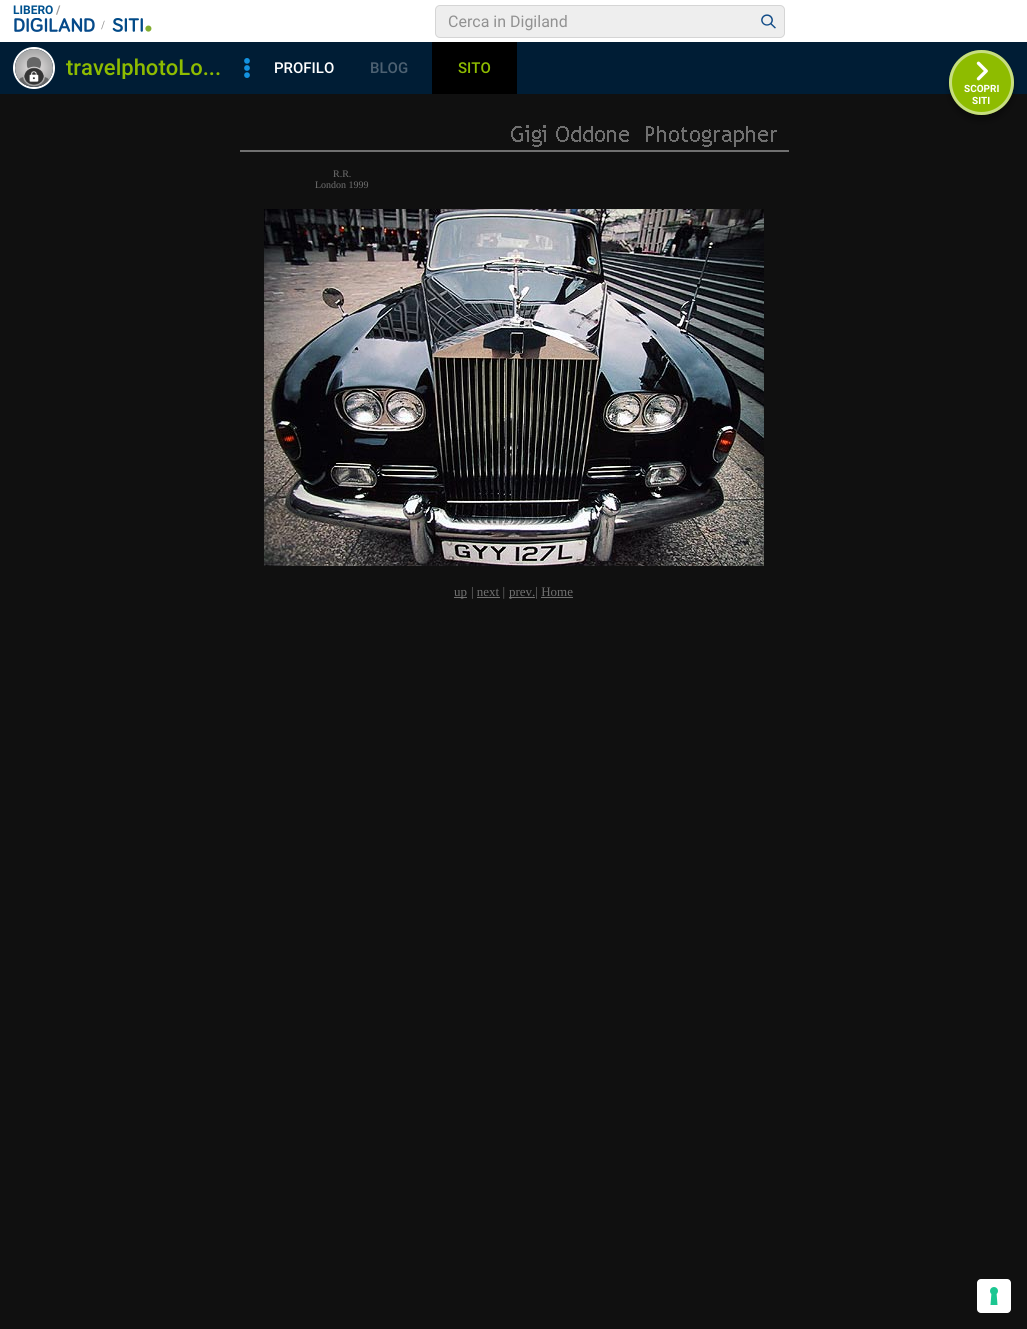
#include <cairo.h>
#include <math.h>
#include <stddef.h>

static cairo_t *ctx;

static void use_color(int r, int g, int b) {
    cairo_set_source_rgb(ctx, r / 255.0, g / 255.0, b / 255.0);
}

static void round_rect(double x, double y, double w, double h, double r) {
    cairo_new_sub_path(ctx);
    cairo_arc(ctx, x + w - r, y + h - r, r, 0, M_PI / 2);
    cairo_arc(ctx, x + r, y + h - r, r, M_PI / 2, M_PI);
    cairo_arc(ctx, x + r, y + r, r, M_PI, 1.5 * M_PI);
    cairo_arc(ctx, x + w - r, y + r, r, 1.5 * M_PI, 2 * M_PI);
    cairo_close_path(ctx);
}

static void shadow(double x, double y, double w, double h, double r, double blur, double alpha) {
    cairo_push_group_with_content(ctx, CAIRO_CONTENT_ALPHA);
    cairo_set_operator(ctx, CAIRO_OPERATOR_SOURCE);
    for (int i = 15; i >= -15 && fmin(w, h) + blur * i / 3 > 0; i -= 2) {
        double e = blur * i / 6;
        cairo_set_source_rgba(ctx, 0, 0, 0, alpha * erfc((i - 1) / 8.5) / 2);
        round_rect(x - e, y - e, w + 2 * e, h + 2 * e, fmax(0, fmin(r + e + blur * .6, fmin(w, h) / 2 + e)));
        cairo_fill(ctx);
    }
    cairo_pattern_t *soft = cairo_pop_group(ctx);
    cairo_mask(ctx, soft);
    cairo_pattern_destroy(soft);
}

static void picture(const char *path, double x, double y, double w, double h) {
    cairo_surface_t *image = cairo_image_surface_create_from_png(path);
    cairo_save(ctx);
    cairo_set_source_surface(ctx, image, x, y);
    cairo_rectangle(ctx, x, y, w, h);
    cairo_fill(ctx);
    cairo_restore(ctx);
    cairo_surface_destroy(image);
}

int main(void) {
    cairo_surface_t *surface = cairo_image_surface_create(CAIRO_FORMAT_RGB24, 1027, 1329);
    ctx = cairo_create(surface);
    cairo_font_options_t *options = cairo_font_options_create();
    cairo_font_options_set_hint_metrics(options, CAIRO_HINT_METRICS_OFF);
    cairo_font_options_set_hint_style(options, CAIRO_HINT_STYLE_NONE);
    cairo_set_font_options(ctx, options);
    cairo_set_miter_limit(ctx, 4);
    use_color(16, 16, 16);
    cairo_paint(ctx);
    use_color(255, 255, 255);
    cairo_rectangle(ctx, 0, 0, 1027, 42);
    cairo_fill(ctx);
    cairo_select_font_face(ctx, "Roboto", CAIRO_FONT_SLANT_NORMAL, CAIRO_FONT_WEIGHT_BOLD);
    cairo_set_font_size(ctx, 12);
    use_color(0, 82, 143);
    cairo_move_to(ctx, 13, 14);
    cairo_show_text(ctx, "LIBERO");
    use_color(153, 153, 153);
    cairo_move_to(ctx, 56, 14);
    cairo_show_text(ctx, "/");
    picture("img1.png", 14, 18, 81, 14);
    picture("img2.png", 101, 20, 4, 10);
    picture("img3.png", 112, 18, 40, 14);
    use_color(238, 238, 238);
    round_rect(435.5, 5.5, 349, 32, 4.5);
    cairo_fill_preserve(ctx);
    use_color(213, 213, 213);
    cairo_set_line_width(ctx, 1);
    cairo_stroke(ctx);
    cairo_select_font_face(ctx, "Roboto", CAIRO_FONT_SLANT_NORMAL, CAIRO_FONT_WEIGHT_NORMAL);
    cairo_set_font_size(ctx, 16);
    use_color(145, 145, 145);
    cairo_move_to(ctx, 448, 27);
    cairo_show_text(ctx, "Cerca in Digiland");
    picture("img4.png", 761, 14, 15, 15);
    use_color(0, 29, 53);
    cairo_rectangle(ctx, 0, 42, 1027, 52);
    cairo_fill(ctx);
    cairo_arc(ctx, 34, 68, 20, 0, 2 * M_PI);
    use_color(255, 255, 255);
    cairo_set_line_width(ctx, 2);
    cairo_stroke(ctx);
    picture("img5.png", 15, 49, 38, 38);
    cairo_save(ctx);
    cairo_rectangle(ctx, 66, 57, 160, 22);
    cairo_clip(ctx);
    cairo_select_font_face(ctx, "Roboto Medium", CAIRO_FONT_SLANT_NORMAL, CAIRO_FONT_WEIGHT_NORMAL);
    cairo_set_font_size(ctx, 22);
    use_color(142, 188, 0);
    cairo_move_to(ctx, 66, 75);
    cairo_show_text(ctx, "travelphotoLo...");
    cairo_restore(ctx);
    picture("img6.png", 244, 58, 6, 20);
    cairo_select_font_face(ctx, "Roboto Medium", CAIRO_FONT_SLANT_NORMAL, CAIRO_FONT_WEIGHT_NORMAL);
    cairo_set_font_size(ctx, 15);
    cairo_move_to(ctx, 274, 73);
    cairo_show_text(ctx, "PROFILO");
    use_color(77, 97, 114);
    cairo_move_to(ctx, 370, 73);
    cairo_show_text(ctx, "BLOG");
    use_color(0, 0, 0);
    cairo_rectangle(ctx, 432, 42, 85, 52);
    cairo_fill(ctx);
    use_color(142, 188, 0);
    cairo_move_to(ctx, 458, 73);
    cairo_show_text(ctx, "SITO");
    use_color(0, 0, 0);
    shadow(949, 56, 65, 65, 32.5, 3, 0.3);
    use_color(142, 188, 0);
    cairo_arc(ctx, 981.5, 82.5, 32.5, 0, 2 * M_PI);
    cairo_fill(ctx);
    cairo_arc(ctx, 981.5, 82.5, 31, 0, 2 * M_PI);
    cairo_set_source_rgba(ctx, 1, 1, 1, 0.5);
    cairo_set_line_width(ctx, 3);
    cairo_stroke(ctx);
    picture("img7.png", 976, 61, 12, 20);
    cairo_select_font_face(ctx, "Roboto", CAIRO_FONT_SLANT_NORMAL, CAIRO_FONT_WEIGHT_BOLD);
    cairo_set_font_size(ctx, 10);
    use_color(255, 255, 255);
    cairo_move_to(ctx, 964, 92);
    cairo_show_text(ctx, "SCOPRI");
    cairo_move_to(ctx, 972, 104);
    cairo_show_text(ctx, "SITI");
    picture("img8.png", 240, 125, 549, 27);
    cairo_select_font_face(ctx, "Liberation Serif", CAIRO_FONT_SLANT_NORMAL, CAIRO_FONT_WEIGHT_NORMAL);
    use_color(112, 112, 112);
    cairo_move_to(ctx, 333, 177);
    cairo_show_text(ctx, "R.R.");
    cairo_move_to(ctx, 315, 188);
    cairo_show_text(ctx, "London 1999");
    picture("img9.png", 264, 209, 500, 357);
    cairo_rectangle(ctx, 454, 597, 13, 1);
    cairo_fill(ctx);
    cairo_set_font_size(ctx, 13);
    cairo_move_to(ctx, 454, 596);
    cairo_show_text(ctx, "up");
    cairo_move_to(ctx, 471, 596);
    cairo_show_text(ctx, "| next |");
    cairo_rectangle(ctx, 477, 597, 23, 1);
    cairo_fill(ctx);
    cairo_rectangle(ctx, 509, 597, 26, 1);
    cairo_fill(ctx);
    cairo_move_to(ctx, 509, 596);
    cairo_show_text(ctx, "prev.| Home");
    cairo_rectangle(ctx, 541, 597, 32, 1);
    cairo_fill(ctx);
    use_color(255, 255, 255);
    round_rect(977, 1279, 34, 34, 4);
    cairo_fill(ctx);
    picture("img10.png", 990, 1287, 8, 18);
    cairo_surface_write_to_png(surface, "result.png");
    cairo_font_options_destroy(options);
    cairo_destroy(ctx);
    cairo_surface_destroy(surface);
    return 0;
}
